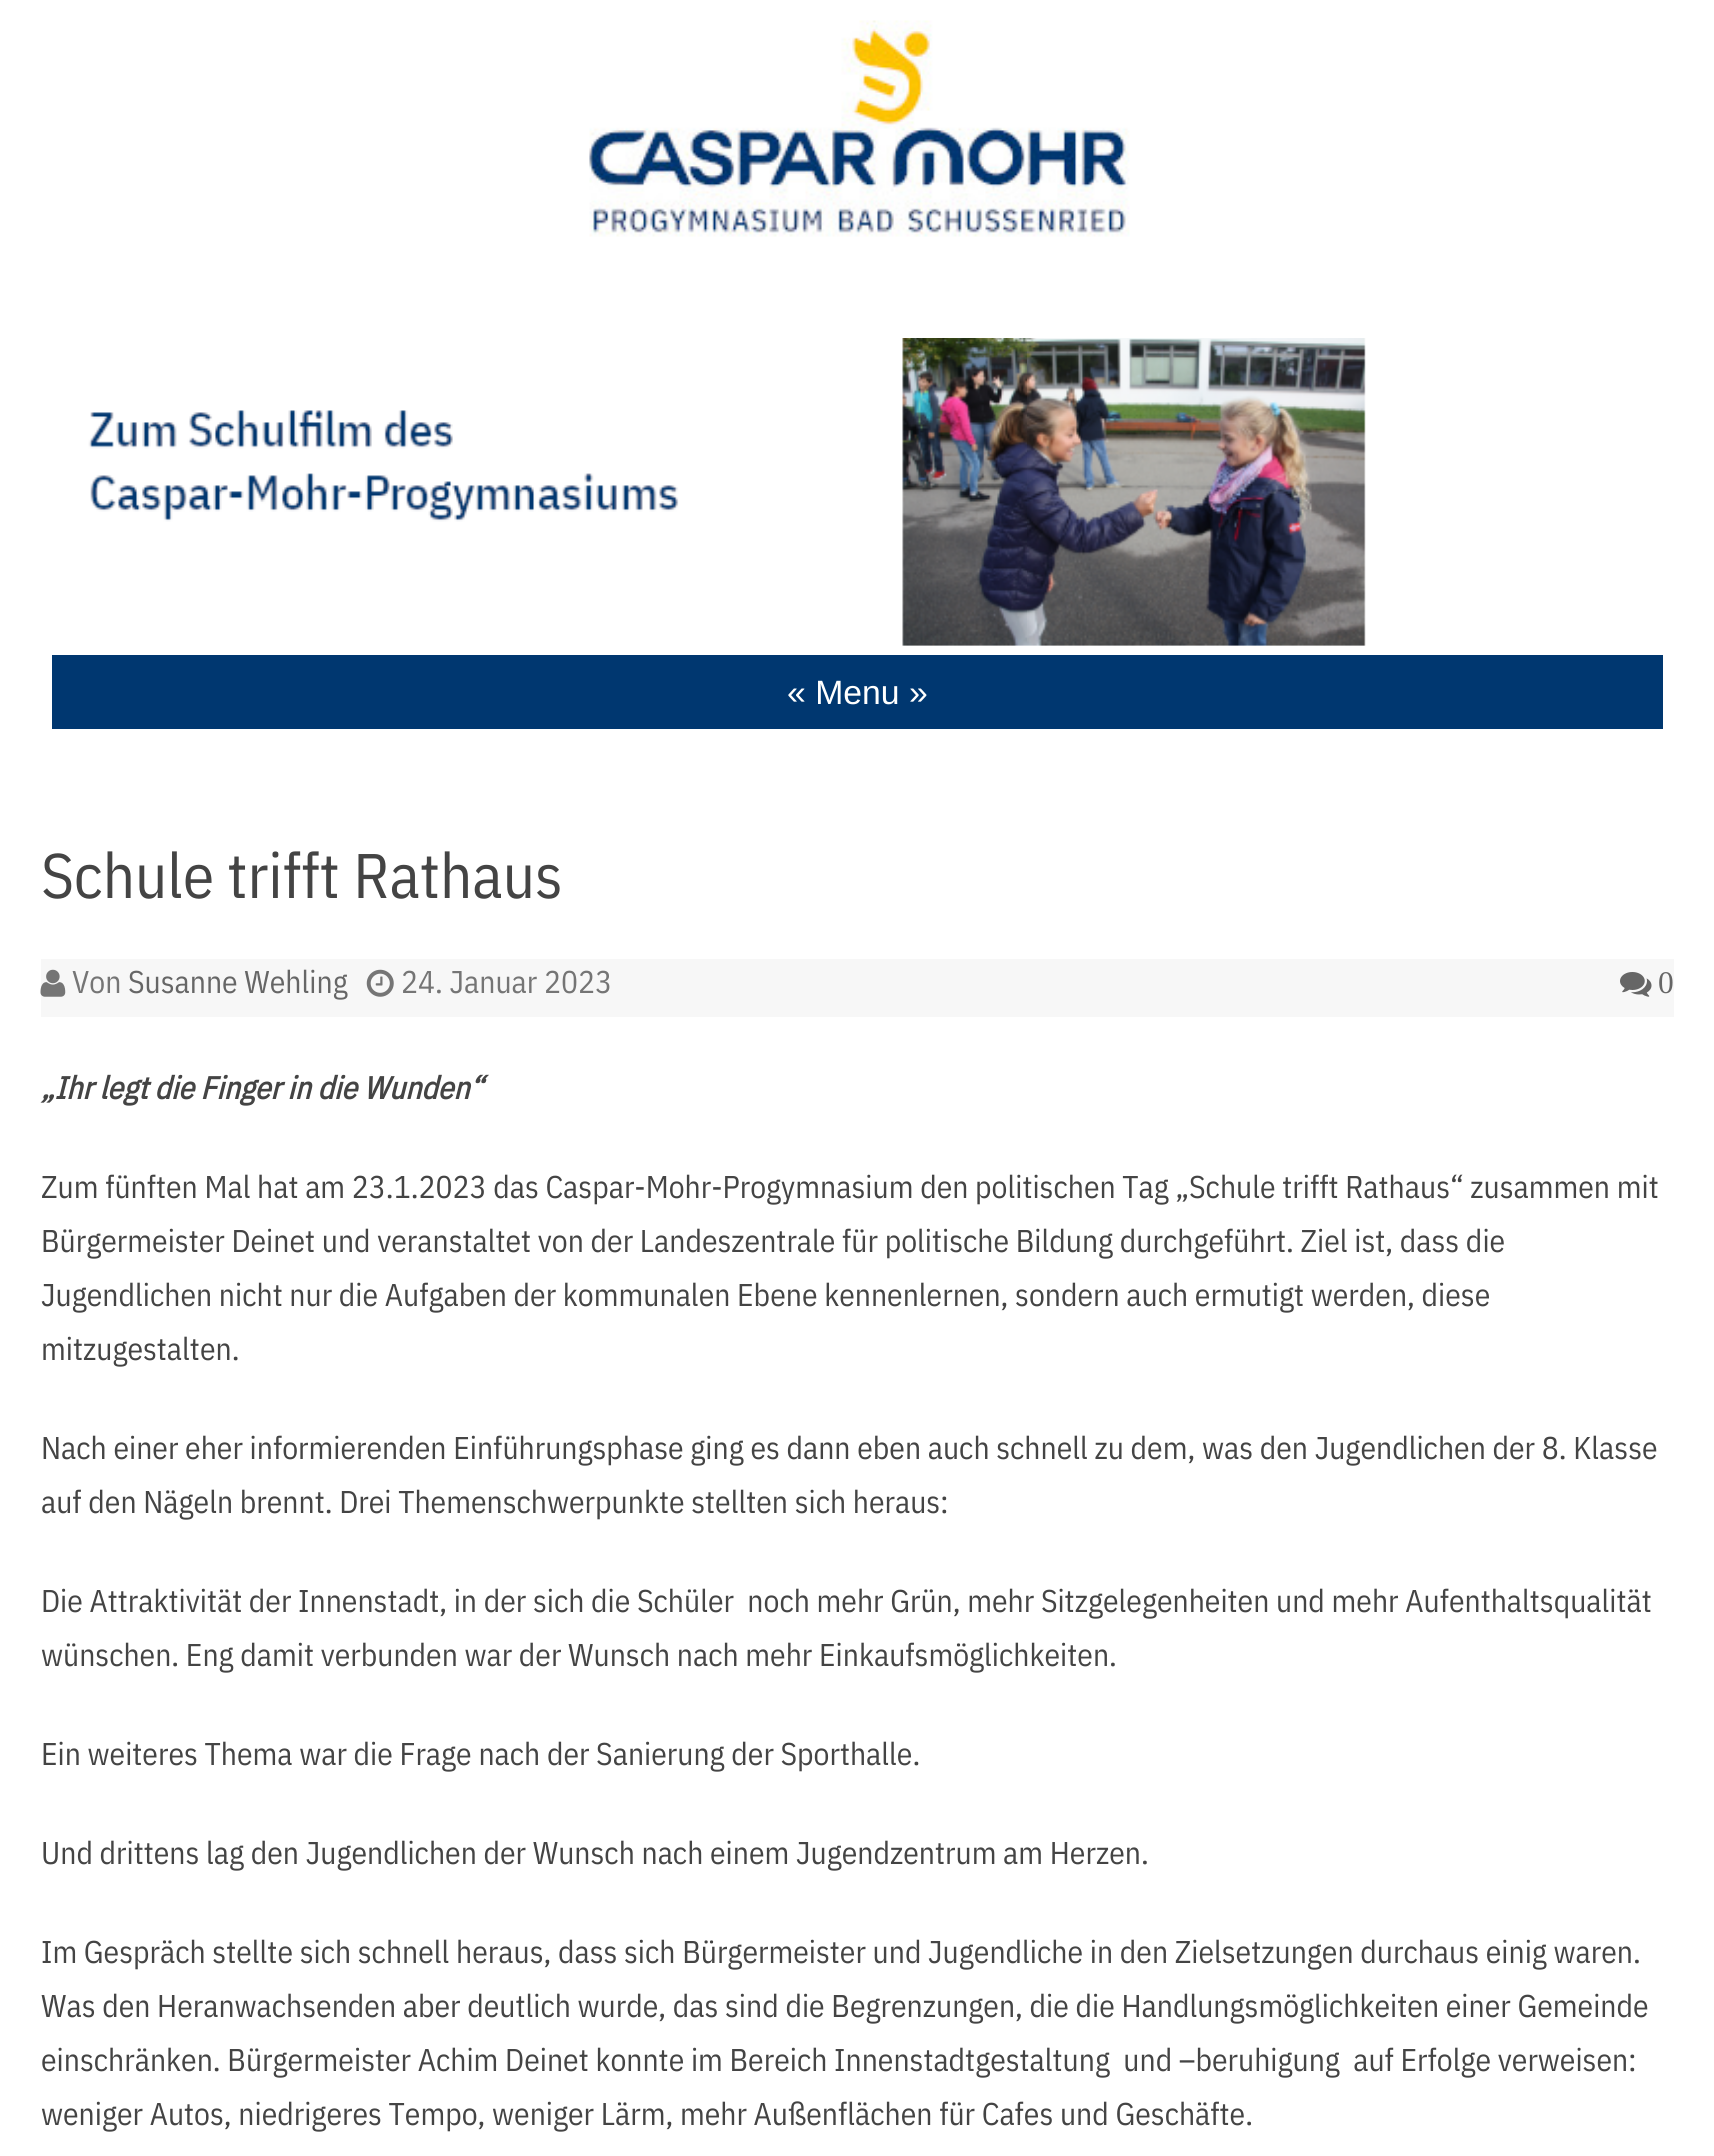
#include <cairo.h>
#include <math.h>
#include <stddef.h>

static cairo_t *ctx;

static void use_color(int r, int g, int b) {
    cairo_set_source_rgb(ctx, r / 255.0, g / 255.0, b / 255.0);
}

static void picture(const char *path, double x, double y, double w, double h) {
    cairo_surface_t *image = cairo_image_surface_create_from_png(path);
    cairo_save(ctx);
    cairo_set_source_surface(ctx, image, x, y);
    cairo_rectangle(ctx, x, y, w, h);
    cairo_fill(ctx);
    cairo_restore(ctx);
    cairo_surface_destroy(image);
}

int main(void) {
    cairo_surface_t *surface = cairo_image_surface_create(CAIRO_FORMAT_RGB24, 1714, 2156);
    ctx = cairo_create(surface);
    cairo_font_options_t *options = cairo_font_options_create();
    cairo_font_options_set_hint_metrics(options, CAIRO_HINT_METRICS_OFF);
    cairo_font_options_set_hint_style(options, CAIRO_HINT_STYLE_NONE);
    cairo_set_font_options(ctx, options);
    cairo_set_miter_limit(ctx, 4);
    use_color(255, 255, 255);
    cairo_paint(ctx);
    picture("img1.png", 589, 20, 541, 217);
    picture("img2.png", 88, 338, 1278, 308);
    use_color(0, 55, 112);
    cairo_rectangle(ctx, 52, 655, 1611, 74);
    cairo_fill(ctx);
    cairo_select_font_face(ctx, "Liberation Sans", CAIRO_FONT_SLANT_NORMAL, CAIRO_FONT_WEIGHT_NORMAL);
    cairo_set_font_size(ctx, 33.75);
    use_color(255, 255, 255);
    cairo_move_to(ctx, 787, 704);
    cairo_show_text(ctx, "« Menu »");
    cairo_select_font_face(ctx, "IBM Plex Sans Condensed", CAIRO_FONT_SLANT_NORMAL, CAIRO_FONT_WEIGHT_NORMAL);
    cairo_set_font_size(ctx, 63);
    use_color(68, 68, 68);
    cairo_move_to(ctx, 41, 898);
    cairo_show_text(ctx, "Schule trifft Rathaus");
    use_color(247, 247, 247);
    cairo_rectangle(ctx, 41, 959, 1633, 58);
    cairo_fill(ctx);
    picture("img3.png", 40, 969, 26, 28);
    cairo_set_font_size(ctx, 31.5);
    use_color(117, 117, 117);
    cairo_move_to(ctx, 72, 993);
    cairo_show_text(ctx, "Von");
    use_color(102, 102, 102);
    cairo_move_to(ctx, 128, 993);
    cairo_show_text(ctx, "Susanne Wehling");
    picture("img4.png", 366, 969, 28, 28);
    use_color(117, 117, 117);
    cairo_move_to(ctx, 401, 993);
    cairo_show_text(ctx, "24. Januar 2023");
    picture("img5.png", 1620, 972, 32, 25);
    cairo_select_font_face(ctx, "Liberation Serif", CAIRO_FONT_SLANT_NORMAL, CAIRO_FONT_WEIGHT_NORMAL);
    use_color(102, 102, 102);
    cairo_move_to(ctx, 1658, 993);
    cairo_show_text(ctx, "0");
    cairo_select_font_face(ctx, "IBM Plex Sans Condensed", CAIRO_FONT_SLANT_ITALIC, CAIRO_FONT_WEIGHT_BOLD);
    use_color(68, 68, 68);
    cairo_move_to(ctx, 41, 1099);
    cairo_show_text(ctx, "„Ihr legt die Finger in die Wunden“");
    cairo_select_font_face(ctx, "IBM Plex Sans Condensed", CAIRO_FONT_SLANT_NORMAL, CAIRO_FONT_WEIGHT_NORMAL);
    cairo_move_to(ctx, 41, 1198);
    cairo_show_text(ctx, "Zum fünften Mal hat am 23.1.2023 das Caspar-Mohr-Progymnasium den politischen Tag „Schule trifft Rathaus“ zusammen mit");
    cairo_move_to(ctx, 41, 1252);
    cairo_show_text(ctx, "Bürgermeister Deinet und veranstaltet von der Landeszentrale für politische Bildung durchgeführt. Ziel ist, dass die");
    cairo_move_to(ctx, 41, 1306);
    cairo_show_text(ctx, "Jugendlichen nicht nur die Aufgaben der kommunalen Ebene kennenlernen, sondern auch ermutigt werden, diese");
    cairo_move_to(ctx, 41, 1360);
    cairo_show_text(ctx, "mitzugestalten.");
    cairo_move_to(ctx, 41, 1459);
    cairo_show_text(ctx, "Nach einer eher informierenden Einführungsphase ging es dann eben auch schnell zu dem, was den Jugendlichen der 8. Klasse");
    cairo_move_to(ctx, 41, 1513);
    cairo_show_text(ctx, "auf den Nägeln brennt. Drei Themenschwerpunkte stellten sich heraus:");
    cairo_move_to(ctx, 41, 1612);
    cairo_show_text(ctx, "Die Attraktivität der Innenstadt, in der sich die Schüler  noch mehr Grün, mehr Sitzgelegenheiten und mehr Aufenthaltsqualität");
    cairo_move_to(ctx, 41, 1666);
    cairo_show_text(ctx, "wünschen. Eng damit verbunden war der Wunsch nach mehr Einkaufsmöglichkeiten.");
    cairo_move_to(ctx, 41, 1765);
    cairo_show_text(ctx, "Ein weiteres Thema war die Frage nach der Sanierung der Sporthalle.");
    cairo_move_to(ctx, 41, 1864);
    cairo_show_text(ctx, "Und drittens lag den Jugendlichen der Wunsch nach einem Jugendzentrum am Herzen.");
    cairo_move_to(ctx, 41, 1963);
    cairo_show_text(ctx, "Im Gespräch stellte sich schnell heraus, dass sich Bürgermeister und Jugendliche in den Zielsetzungen durchaus einig waren.");
    cairo_move_to(ctx, 41, 2017);
    cairo_show_text(ctx, "Was den Heranwachsenden aber deutlich wurde, das sind die Begrenzungen, die die Handlungsmöglichkeiten einer Gemeinde");
    cairo_move_to(ctx, 41, 2071);
    cairo_show_text(ctx, "einschränken. Bürgermeister Achim Deinet konnte im Bereich Innenstadtgestaltung  und –beruhigung  auf Erfolge verweisen:");
    cairo_move_to(ctx, 41, 2125);
    cairo_show_text(ctx, "weniger Autos, niedrigeres Tempo, weniger Lärm, mehr Außenflächen für Cafes und Geschäfte.");
    cairo_surface_write_to_png(surface, "result.png");
    cairo_font_options_destroy(options);
    cairo_destroy(ctx);
    cairo_surface_destroy(surface);
    return 0;
}
